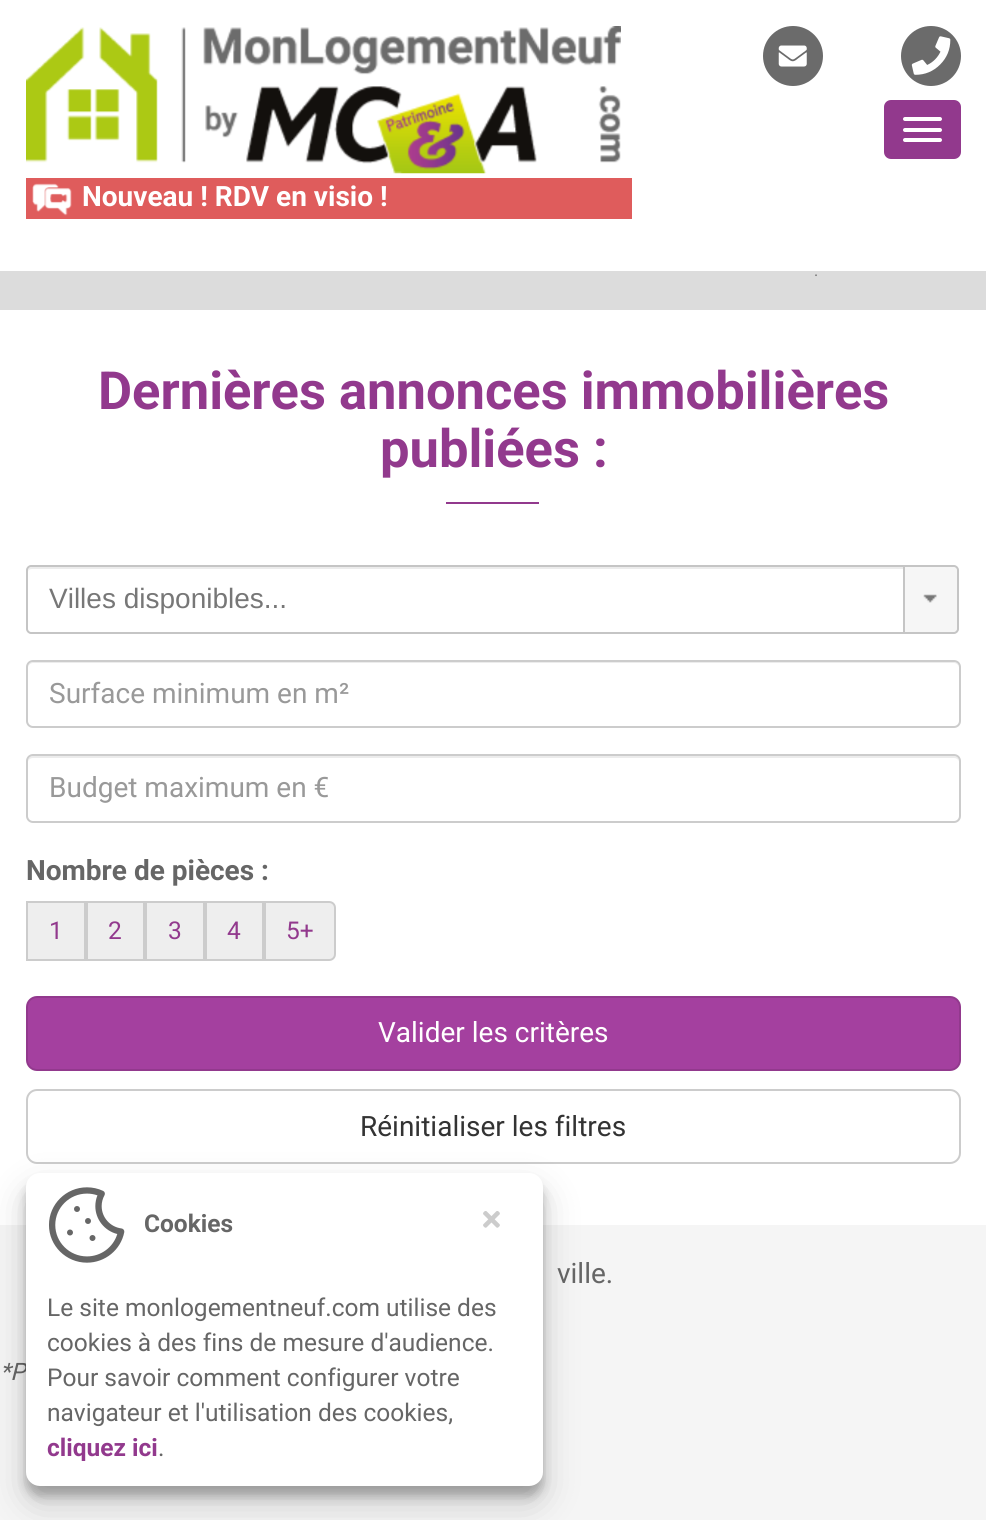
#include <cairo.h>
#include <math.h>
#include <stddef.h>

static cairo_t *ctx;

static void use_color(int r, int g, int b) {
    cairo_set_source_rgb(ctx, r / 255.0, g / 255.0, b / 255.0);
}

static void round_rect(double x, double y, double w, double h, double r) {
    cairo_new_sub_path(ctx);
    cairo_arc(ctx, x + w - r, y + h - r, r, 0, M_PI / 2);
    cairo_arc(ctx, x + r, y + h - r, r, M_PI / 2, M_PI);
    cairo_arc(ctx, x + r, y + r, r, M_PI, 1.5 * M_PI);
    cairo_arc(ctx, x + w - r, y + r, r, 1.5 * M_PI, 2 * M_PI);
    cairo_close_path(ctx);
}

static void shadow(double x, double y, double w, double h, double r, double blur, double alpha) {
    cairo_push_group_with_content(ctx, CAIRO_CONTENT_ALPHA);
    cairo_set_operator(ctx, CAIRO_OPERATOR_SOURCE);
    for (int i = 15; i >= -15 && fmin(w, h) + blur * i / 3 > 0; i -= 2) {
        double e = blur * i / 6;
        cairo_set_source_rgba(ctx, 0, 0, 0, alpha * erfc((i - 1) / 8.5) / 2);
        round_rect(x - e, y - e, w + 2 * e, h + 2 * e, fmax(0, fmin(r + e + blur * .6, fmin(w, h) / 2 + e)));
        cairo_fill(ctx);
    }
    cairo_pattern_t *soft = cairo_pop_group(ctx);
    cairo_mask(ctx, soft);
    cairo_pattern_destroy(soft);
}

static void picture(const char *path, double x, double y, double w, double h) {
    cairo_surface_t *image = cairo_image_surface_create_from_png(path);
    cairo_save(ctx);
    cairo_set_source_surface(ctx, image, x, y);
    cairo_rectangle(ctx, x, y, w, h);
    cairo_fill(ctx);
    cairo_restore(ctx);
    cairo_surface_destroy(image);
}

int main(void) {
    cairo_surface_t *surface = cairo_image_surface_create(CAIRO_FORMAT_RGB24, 986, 1520);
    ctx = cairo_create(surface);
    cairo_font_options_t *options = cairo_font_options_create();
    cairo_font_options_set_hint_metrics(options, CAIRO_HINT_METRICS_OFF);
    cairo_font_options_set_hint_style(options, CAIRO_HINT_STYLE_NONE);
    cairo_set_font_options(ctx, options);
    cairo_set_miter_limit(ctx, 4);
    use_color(245, 245, 245);
    cairo_paint(ctx);
    use_color(255, 255, 255);
    cairo_rectangle(ctx, 0, 0, 986, 271);
    cairo_fill(ctx);
    use_color(107, 107, 107);
    cairo_arc(ctx, 793, 56, 30, 0, 2 * M_PI);
    cairo_fill(ctx);
    picture("img1.png", 778, 45, 29, 22);
    cairo_arc(ctx, 931, 56, 30, 0, 2 * M_PI);
    cairo_fill(ctx);
    picture("img2.png", 911, 36, 40, 39);
    use_color(146, 57, 141);
    round_rect(884, 100, 77, 59, 7);
    cairo_fill(ctx);
    use_color(255, 255, 255);
    round_rect(903, 117, 39, 4, 2);
    cairo_fill(ctx);
    round_rect(903, 128, 39, 4, 2);
    cairo_fill(ctx);
    round_rect(903, 138, 39, 4, 2);
    cairo_fill(ctx);
    picture("img3.png", 26, 26, 595, 148);
    use_color(223, 92, 92);
    cairo_rectangle(ctx, 26, 178, 606, 41);
    cairo_fill(ctx);
    picture("img4.png", 32, 183, 40, 33);
    cairo_select_font_face(ctx, "Roboto", CAIRO_FONT_SLANT_NORMAL, CAIRO_FONT_WEIGHT_BOLD);
    cairo_set_font_size(ctx, 28);
    use_color(255, 255, 255);
    cairo_move_to(ctx, 82, 206);
    cairo_show_text(ctx, "Nouveau ! RDV en visio !");
    use_color(220, 220, 220);
    cairo_rectangle(ctx, 0, 271, 986, 39);
    cairo_fill(ctx);
    cairo_select_font_face(ctx, "Roboto", CAIRO_FONT_SLANT_NORMAL, CAIRO_FONT_WEIGHT_NORMAL);
    cairo_set_font_size(ctx, 16);
    use_color(119, 119, 119);
    cairo_move_to(ctx, 814, 276);
    cairo_show_text(ctx, ".");
    use_color(255, 255, 255);
    cairo_rectangle(ctx, 0, 310, 986, 915);
    cairo_fill(ctx);
    cairo_select_font_face(ctx, "Roboto", CAIRO_FONT_SLANT_NORMAL, CAIRO_FONT_WEIGHT_BOLD);
    cairo_set_font_size(ctx, 52.5);
    use_color(146, 57, 141);
    cairo_move_to(ctx, 98, 409);
    cairo_show_text(ctx, "Dernières annonces immobilières");
    cairo_move_to(ctx, 380, 467);
    cairo_show_text(ctx, "publiées :");
    cairo_rectangle(ctx, 446, 502, 93, 2);
    cairo_fill(ctx);
    use_color(236, 236, 236);
    cairo_new_path(ctx);
    cairo_move_to(ctx, 32, 569);
    cairo_line_to(ctx, 903, 569);
    cairo_line_to(ctx, 903, 567);
    cairo_line_to(ctx, 32, 567);
    cairo_curve_to(ctx, 29, 567, 28, 569, 28, 572);
    cairo_curve_to(ctx, 28, 570, 30, 569, 32, 569);
    cairo_close_path(ctx);
    cairo_fill(ctx);
    cairo_new_path(ctx);
    cairo_move_to(ctx, 31, 566);
    cairo_line_to(ctx, 904, 566);
    cairo_line_to(ctx, 904, 633);
    cairo_line_to(ctx, 31, 633);
    cairo_curve_to(ctx, 29, 633, 27, 631, 27, 629);
    cairo_line_to(ctx, 27, 570);
    cairo_curve_to(ctx, 27, 568, 29, 566, 31, 566);
    cairo_close_path(ctx);
    use_color(197, 197, 197);
    cairo_stroke(ctx);
    cairo_select_font_face(ctx, "Liberation Sans", CAIRO_FONT_SLANT_NORMAL, CAIRO_FONT_WEIGHT_NORMAL);
    cairo_set_font_size(ctx, 28);
    use_color(119, 119, 119);
    cairo_move_to(ctx, 49, 608);
    cairo_show_text(ctx, "Villes disponibles...");
    use_color(246, 246, 246);
    cairo_new_path(ctx);
    cairo_move_to(ctx, 904, 566);
    cairo_line_to(ctx, 954, 566);
    cairo_curve_to(ctx, 956, 566, 958, 568, 958, 570);
    cairo_line_to(ctx, 958, 629);
    cairo_curve_to(ctx, 958, 631, 956, 633, 954, 633);
    cairo_line_to(ctx, 904, 633);
    cairo_close_path(ctx);
    cairo_fill_preserve(ctx);
    use_color(197, 197, 197);
    cairo_stroke(ctx);
    picture("img5.png", 923, 594, 14, 9);
    use_color(236, 236, 236);
    cairo_new_path(ctx);
    cairo_move_to(ctx, 33, 663);
    cairo_line_to(ctx, 954, 663);
    cairo_curve_to(ctx, 957, 663, 959, 666, 959, 668);
    cairo_curve_to(ctx, 959, 665, 957, 662, 954, 662);
    cairo_line_to(ctx, 33, 662);
    cairo_curve_to(ctx, 30, 662, 28, 665, 28, 668);
    cairo_curve_to(ctx, 28, 666, 30, 663, 33, 663);
    cairo_close_path(ctx);
    cairo_fill(ctx);
    round_rect(27, 661, 933, 66, 6);
    use_color(204, 204, 204);
    cairo_stroke(ctx);
    cairo_select_font_face(ctx, "Roboto", CAIRO_FONT_SLANT_NORMAL, CAIRO_FONT_WEIGHT_NORMAL);
    use_color(153, 153, 153);
    cairo_move_to(ctx, 49, 703);
    cairo_show_text(ctx, "Surface minimum en m²");
    use_color(236, 236, 236);
    cairo_new_path(ctx);
    cairo_move_to(ctx, 33, 758);
    cairo_line_to(ctx, 954, 758);
    cairo_curve_to(ctx, 957, 758, 959, 760, 959, 763);
    cairo_curve_to(ctx, 959, 760, 958, 756, 954, 756);
    cairo_line_to(ctx, 33, 756);
    cairo_curve_to(ctx, 29, 756, 28, 760, 28, 763);
    cairo_curve_to(ctx, 28, 760, 30, 758, 33, 758);
    cairo_close_path(ctx);
    cairo_fill(ctx);
    round_rect(27, 755, 933, 67, 6);
    use_color(204, 204, 204);
    cairo_stroke(ctx);
    use_color(153, 153, 153);
    cairo_move_to(ctx, 49, 797);
    cairo_show_text(ctx, "Budget maximum en €");
    cairo_select_font_face(ctx, "Roboto", CAIRO_FONT_SLANT_NORMAL, CAIRO_FONT_WEIGHT_BOLD);
    use_color(102, 102, 102);
    cairo_move_to(ctx, 26, 880);
    cairo_show_text(ctx, "Nombre de pièces :");
    use_color(238, 238, 238);
    cairo_rectangle(ctx, 27, 902, 58, 58);
    cairo_fill_preserve(ctx);
    use_color(204, 204, 204);
    cairo_stroke(ctx);
    cairo_select_font_face(ctx, "Roboto", CAIRO_FONT_SLANT_NORMAL, CAIRO_FONT_WEIGHT_NORMAL);
    cairo_set_font_size(ctx, 24.5);
    use_color(146, 57, 141);
    cairo_move_to(ctx, 49, 939);
    cairo_show_text(ctx, "1");
    use_color(238, 238, 238);
    cairo_rectangle(ctx, 87, 902, 57, 58);
    cairo_fill_preserve(ctx);
    use_color(204, 204, 204);
    cairo_stroke(ctx);
    use_color(146, 57, 141);
    cairo_move_to(ctx, 108, 939);
    cairo_show_text(ctx, "2");
    use_color(238, 238, 238);
    cairo_rectangle(ctx, 146, 902, 58, 58);
    cairo_fill_preserve(ctx);
    use_color(204, 204, 204);
    cairo_stroke(ctx);
    use_color(146, 57, 141);
    cairo_move_to(ctx, 168, 939);
    cairo_show_text(ctx, "3");
    use_color(238, 238, 238);
    cairo_rectangle(ctx, 206, 902, 57, 58);
    cairo_fill_preserve(ctx);
    use_color(204, 204, 204);
    cairo_stroke(ctx);
    use_color(146, 57, 141);
    cairo_move_to(ctx, 227, 939);
    cairo_show_text(ctx, "4");
    use_color(238, 238, 238);
    cairo_new_path(ctx);
    cairo_move_to(ctx, 265, 902);
    cairo_line_to(ctx, 329, 902);
    cairo_curve_to(ctx, 332.5, 902, 335, 904.5, 335, 908);
    cairo_line_to(ctx, 335, 954);
    cairo_curve_to(ctx, 335, 957.5, 332.5, 960, 329, 960);
    cairo_line_to(ctx, 265, 960);
    cairo_close_path(ctx);
    cairo_fill_preserve(ctx);
    use_color(204, 204, 204);
    cairo_stroke(ctx);
    use_color(146, 57, 141);
    cairo_move_to(ctx, 286, 939);
    cairo_show_text(ctx, "5+");
    use_color(164, 64, 159);
    round_rect(27, 997, 933, 73, 10);
    cairo_fill_preserve(ctx);
    use_color(146, 57, 141);
    cairo_stroke(ctx);
    cairo_set_font_size(ctx, 28);
    use_color(255, 255, 255);
    cairo_move_to(ctx, 378, 1042);
    cairo_show_text(ctx, "Valider les critères");
    round_rect(27, 1090, 933, 73, 10);
    use_color(204, 204, 204);
    cairo_stroke(ctx);
    use_color(51, 51, 51);
    cairo_move_to(ctx, 360, 1136);
    cairo_show_text(ctx, "Réinitialiser les filtres");
    use_color(102, 102, 102);
    cairo_move_to(ctx, 557, 1283);
    cairo_show_text(ctx, "ville.");
    cairo_select_font_face(ctx, "Roboto", CAIRO_FONT_SLANT_ITALIC, CAIRO_FONT_WEIGHT_NORMAL);
    cairo_set_font_size(ctx, 24);
    cairo_move_to(ctx, 0, 1380);
    cairo_show_text(ctx, "*P");
    use_color(0, 0, 0);
    shadow(26, 1183, 517, 313, 14, 5, 0.23);
    shadow(26, 1190, 517, 313, 14, 17.5, 0.19);
    use_color(255, 255, 255);
    round_rect(26, 1173, 517, 313, 14);
    cairo_fill(ctx);
    picture("img6.png", 49, 1187, 76, 76);
    cairo_select_font_face(ctx, "Roboto", CAIRO_FONT_SLANT_NORMAL, CAIRO_FONT_WEIGHT_BOLD);
    cairo_set_font_size(ctx, 24.5);
    use_color(102, 102, 102);
    cairo_move_to(ctx, 144, 1232);
    cairo_show_text(ctx, "Cookies");
    picture("img7.png", 483, 1211, 17, 17);
    cairo_select_font_face(ctx, "Roboto", CAIRO_FONT_SLANT_NORMAL, CAIRO_FONT_WEIGHT_NORMAL);
    cairo_move_to(ctx, 47, 1316);
    cairo_show_text(ctx, "Le site monlogementneuf.com utilise des");
    cairo_move_to(ctx, 47, 1351);
    cairo_show_text(ctx, "cookies à des fins de mesure d'audience.");
    cairo_move_to(ctx, 47, 1386);
    cairo_show_text(ctx, "Pour savoir comment configurer votre");
    cairo_move_to(ctx, 47, 1421);
    cairo_show_text(ctx, "navigateur et l'utilisation des cookies,");
    cairo_select_font_face(ctx, "Roboto", CAIRO_FONT_SLANT_NORMAL, CAIRO_FONT_WEIGHT_BOLD);
    use_color(146, 57, 141);
    cairo_move_to(ctx, 47, 1456);
    cairo_show_text(ctx, "cliquez ici");
    cairo_select_font_face(ctx, "Roboto", CAIRO_FONT_SLANT_NORMAL, CAIRO_FONT_WEIGHT_NORMAL);
    use_color(102, 102, 102);
    cairo_move_to(ctx, 158, 1456);
    cairo_show_text(ctx, ".");
    cairo_surface_write_to_png(surface, "result.png");
    cairo_font_options_destroy(options);
    cairo_destroy(ctx);
    cairo_surface_destroy(surface);
    return 0;
}
